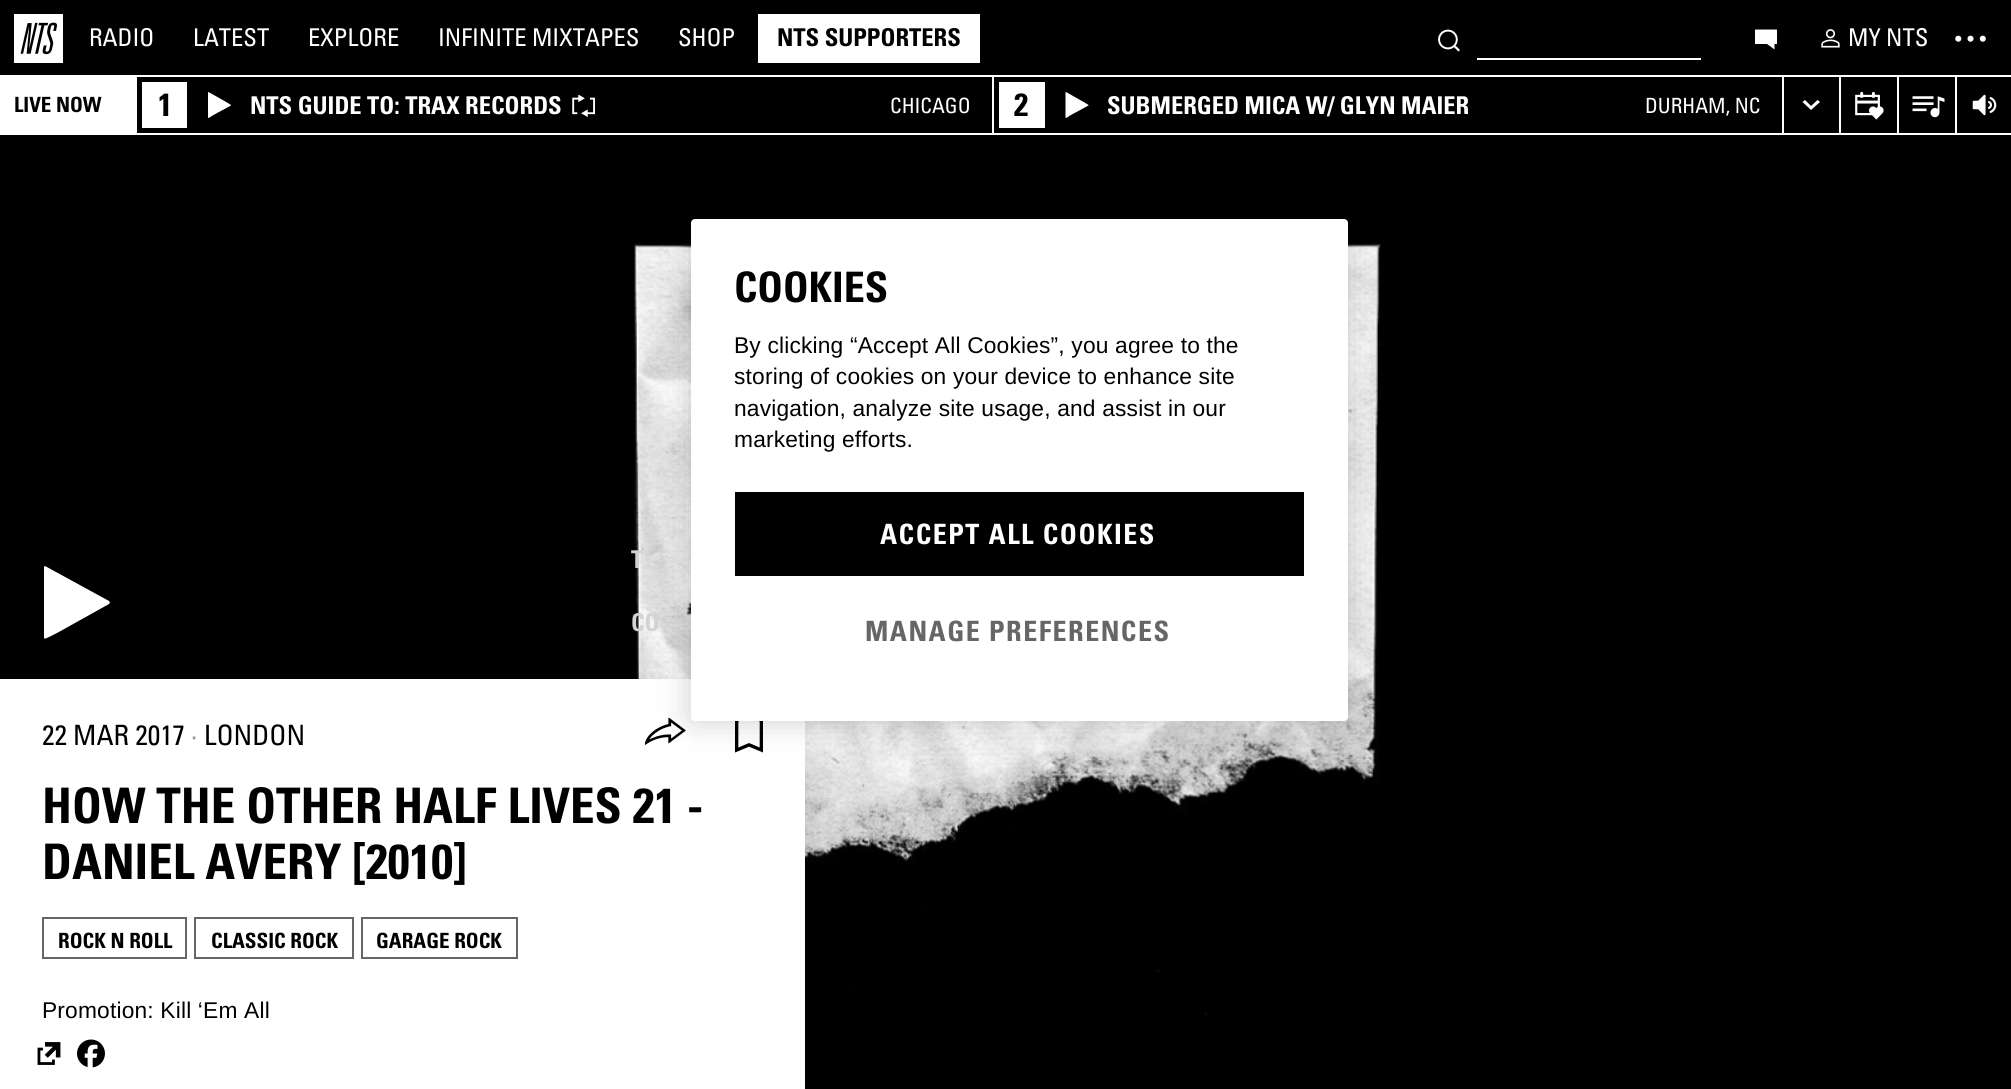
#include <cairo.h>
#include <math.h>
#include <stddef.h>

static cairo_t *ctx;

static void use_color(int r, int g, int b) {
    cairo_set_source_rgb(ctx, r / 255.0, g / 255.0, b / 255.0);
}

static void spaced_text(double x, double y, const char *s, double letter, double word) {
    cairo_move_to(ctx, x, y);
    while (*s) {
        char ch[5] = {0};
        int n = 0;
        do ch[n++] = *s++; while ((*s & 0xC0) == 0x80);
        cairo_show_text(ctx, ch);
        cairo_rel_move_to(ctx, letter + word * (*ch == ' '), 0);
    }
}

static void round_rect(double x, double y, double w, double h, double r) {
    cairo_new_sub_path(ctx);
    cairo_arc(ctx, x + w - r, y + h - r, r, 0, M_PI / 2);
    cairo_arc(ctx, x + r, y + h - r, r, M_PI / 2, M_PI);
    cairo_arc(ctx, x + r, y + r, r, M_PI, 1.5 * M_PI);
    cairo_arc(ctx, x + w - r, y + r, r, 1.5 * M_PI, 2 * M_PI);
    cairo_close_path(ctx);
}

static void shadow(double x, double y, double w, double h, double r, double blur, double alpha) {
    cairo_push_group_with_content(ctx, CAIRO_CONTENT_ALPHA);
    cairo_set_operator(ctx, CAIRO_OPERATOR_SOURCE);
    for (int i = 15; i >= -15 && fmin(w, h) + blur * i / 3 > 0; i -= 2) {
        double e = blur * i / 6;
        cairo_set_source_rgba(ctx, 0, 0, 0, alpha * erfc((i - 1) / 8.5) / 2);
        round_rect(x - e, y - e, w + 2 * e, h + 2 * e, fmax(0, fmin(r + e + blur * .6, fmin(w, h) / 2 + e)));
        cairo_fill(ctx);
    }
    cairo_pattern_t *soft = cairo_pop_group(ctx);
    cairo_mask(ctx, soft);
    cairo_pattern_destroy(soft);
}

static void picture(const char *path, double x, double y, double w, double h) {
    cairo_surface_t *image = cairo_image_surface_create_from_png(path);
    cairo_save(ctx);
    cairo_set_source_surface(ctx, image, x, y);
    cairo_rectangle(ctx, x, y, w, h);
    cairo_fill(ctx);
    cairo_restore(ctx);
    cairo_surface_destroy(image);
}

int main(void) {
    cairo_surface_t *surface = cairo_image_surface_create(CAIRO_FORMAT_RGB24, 2011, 1089);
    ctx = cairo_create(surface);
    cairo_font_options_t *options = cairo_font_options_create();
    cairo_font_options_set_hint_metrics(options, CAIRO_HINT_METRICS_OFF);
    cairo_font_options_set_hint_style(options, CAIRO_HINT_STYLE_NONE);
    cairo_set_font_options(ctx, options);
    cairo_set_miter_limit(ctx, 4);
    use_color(0, 0, 0);
    cairo_paint(ctx);
    use_color(255, 255, 255);
    cairo_rectangle(ctx, 0, 75, 2011, 2);
    cairo_fill(ctx);
    picture("img1.png", 14, 14, 49, 49);
    cairo_select_font_face(ctx, "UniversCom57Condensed", CAIRO_FONT_SLANT_NORMAL, CAIRO_FONT_WEIGHT_NORMAL);
    cairo_set_font_size(ctx, 24.5);
    cairo_move_to(ctx, 89, 46);
    cairo_show_text(ctx, "RADIO");
    cairo_move_to(ctx, 193, 46);
    cairo_show_text(ctx, "LATEST");
    cairo_move_to(ctx, 308, 46);
    cairo_show_text(ctx, "EXPLORE");
    cairo_move_to(ctx, 438, 46);
    cairo_show_text(ctx, "INFINITE MIXTAPES");
    cairo_move_to(ctx, 678, 46);
    cairo_show_text(ctx, "SHOP");
    cairo_rectangle(ctx, 758, 14, 222, 49);
    cairo_fill(ctx);
    cairo_select_font_face(ctx, "Univers", CAIRO_FONT_SLANT_NORMAL, CAIRO_FONT_WEIGHT_BOLD);
    use_color(0, 0, 0);
    cairo_move_to(ctx, 777, 46);
    cairo_show_text(ctx, "NTS SUPPORTERS");
    picture("img2.png", 1438, 29, 22, 23);
    use_color(255, 255, 255);
    cairo_rectangle(ctx, 1477, 58, 224, 2);
    cairo_fill(ctx);
    cairo_new_path(ctx);
    cairo_move_to(ctx, 1777, 44);
    cairo_line_to(ctx, 1774.5, 44);
    cairo_line_to(ctx, 1774.5, 49.5);
    cairo_line_to(ctx, 1767, 44);
    cairo_line_to(ctx, 1755, 44);
    cairo_line_to(ctx, 1755, 29.5);
    cairo_line_to(ctx, 1777, 29.5);
    cairo_close_path(ctx);
    cairo_fill(ctx);
    picture("img3.png", 1821, 29, 19, 19);
    cairo_select_font_face(ctx, "UniversCom57Condensed", CAIRO_FONT_SLANT_NORMAL, CAIRO_FONT_WEIGHT_NORMAL);
    cairo_move_to(ctx, 1848, 46);
    cairo_show_text(ctx, "MY NTS");
    picture("img4.png", 1955, 35, 31, 7);
    cairo_rectangle(ctx, 0, 133, 2011, 2);
    cairo_fill(ctx);
    cairo_rectangle(ctx, 0, 77, 137, 56);
    cairo_fill(ctx);
    cairo_select_font_face(ctx, "Univers", CAIRO_FONT_SLANT_NORMAL, CAIRO_FONT_WEIGHT_BOLD);
    cairo_set_font_size(ctx, 21);
    use_color(0, 0, 0);
    cairo_move_to(ctx, 14, 112);
    cairo_show_text(ctx, "LIVE NOW");
    use_color(255, 255, 255);
    cairo_rectangle(ctx, 142, 82, 45, 46);
    cairo_fill(ctx);
    cairo_set_font_size(ctx, 32);
    use_color(0, 0, 0);
    cairo_move_to(ctx, 158, 116);
    cairo_show_text(ctx, "1");
    use_color(255, 255, 255);
    cairo_new_path(ctx);
    cairo_move_to(ctx, 231, 105.5);
    cairo_line_to(ctx, 212.5, 115.5);
    cairo_curve_to(ctx, 209, 118, 208, 118.5, 208, 117.5);
    cairo_line_to(ctx, 208, 92.5);
    cairo_line_to(ctx, 208.5, 92);
    cairo_line_to(ctx, 227, 102.5);
    cairo_line_to(ctx, 231, 105);
    cairo_close_path(ctx);
    cairo_fill(ctx);
    cairo_set_font_size(ctx, 24.5);
    cairo_move_to(ctx, 250, 114);
    cairo_show_text(ctx, "NTS GUIDE TO: TRAX RECORDS");
    picture("img5.png", 572, 95, 23, 22);
    cairo_select_font_face(ctx, "UniversCom57Condensed", CAIRO_FONT_SLANT_NORMAL, CAIRO_FONT_WEIGHT_NORMAL);
    cairo_set_font_size(ctx, 21);
    cairo_move_to(ctx, 890, 113);
    cairo_show_text(ctx, "CHICAGO");
    cairo_rectangle(ctx, 992, 77, 2, 56);
    cairo_fill(ctx);
    cairo_rectangle(ctx, 999, 82, 46, 46);
    cairo_fill(ctx);
    cairo_select_font_face(ctx, "Univers", CAIRO_FONT_SLANT_NORMAL, CAIRO_FONT_WEIGHT_BOLD);
    cairo_set_font_size(ctx, 32);
    use_color(0, 0, 0);
    cairo_move_to(ctx, 1014, 116);
    cairo_show_text(ctx, "2");
    use_color(255, 255, 255);
    cairo_new_path(ctx);
    cairo_move_to(ctx, 1088.5, 105.5);
    cairo_line_to(ctx, 1070, 115.5);
    cairo_curve_to(ctx, 1066.5, 118, 1065.5, 118.5, 1065.5, 117.5);
    cairo_line_to(ctx, 1065.5, 92.5);
    cairo_line_to(ctx, 1066, 92);
    cairo_line_to(ctx, 1084.5, 102.5);
    cairo_line_to(ctx, 1088.5, 105);
    cairo_close_path(ctx);
    cairo_fill(ctx);
    cairo_set_font_size(ctx, 24.5);
    cairo_move_to(ctx, 1107, 114);
    cairo_show_text(ctx, "SUBMERGED MICA W/ GLYN MAIER");
    cairo_select_font_face(ctx, "UniversCom57Condensed", CAIRO_FONT_SLANT_NORMAL, CAIRO_FONT_WEIGHT_NORMAL);
    cairo_set_font_size(ctx, 21);
    cairo_move_to(ctx, 1645, 113);
    cairo_show_text(ctx, "DURHAM, NC");
    cairo_rectangle(ctx, 1782, 77, 2, 58);
    cairo_fill(ctx);
    cairo_new_path(ctx);
    cairo_move_to(ctx, 1817.5, 100);
    cairo_line_to(ctx, 1820, 102);
    cairo_line_to(ctx, 1811, 110);
    cairo_line_to(ctx, 1802.5, 102);
    cairo_line_to(ctx, 1805, 100);
    cairo_line_to(ctx, 1811, 106);
    cairo_close_path(ctx);
    cairo_fill(ctx);
    cairo_rectangle(ctx, 1839, 77, 2, 58);
    cairo_fill(ctx);
    picture("img6.png", 1855, 91, 29, 29);
    cairo_rectangle(ctx, 1897, 77, 2, 58);
    cairo_fill(ctx);
    picture("img7.png", 1912, 96, 33, 22);
    cairo_rectangle(ctx, 1955, 77, 2, 58);
    cairo_fill(ctx);
    picture("img8.png", 1972, 94, 25, 22);
    picture("img13.png", 634, 243, 747, 773);
    use_color(0, 0, 0);
    shadow(0, 681, 805, 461, 0, 17.5, 0.05);
    use_color(255, 255, 255);
    cairo_rectangle(ctx, 0, 679, 805, 410);
    cairo_fill(ctx);
    cairo_select_font_face(ctx, "Univers", CAIRO_FONT_SLANT_NORMAL, CAIRO_FONT_WEIGHT_BOLD);
    cairo_set_font_size(ctx, 24.5);
    use_color(211, 211, 211);
    cairo_move_to(ctx, 631, 568);
    cairo_show_text(ctx, "T");
    cairo_move_to(ctx, 631, 631);
    cairo_show_text(ctx, "CO");
    picture("img9.png", 644, 717, 42, 28);
    picture("img10.png", 735, 721, 28, 32);
    cairo_select_font_face(ctx, "UniversCom57Condensed", CAIRO_FONT_SLANT_NORMAL, CAIRO_FONT_WEIGHT_NORMAL);
    cairo_set_font_size(ctx, 28);
    use_color(0, 0, 0);
    cairo_move_to(ctx, 42, 745);
    cairo_show_text(ctx, "22 MAR 2017");
    use_color(153, 153, 153);
    cairo_move_to(ctx, 191, 745);
    cairo_show_text(ctx, "·");
    use_color(0, 0, 0);
    cairo_move_to(ctx, 204, 745);
    cairo_show_text(ctx, "LONDON");
    cairo_select_font_face(ctx, "Univers", CAIRO_FONT_SLANT_NORMAL, CAIRO_FONT_WEIGHT_BOLD);
    cairo_set_font_size(ctx, 49);
    cairo_move_to(ctx, 42, 823);
    cairo_show_text(ctx, "HOW THE OTHER HALF LIVES 21 -");
    cairo_move_to(ctx, 42, 879);
    cairo_show_text(ctx, "DANIEL AVERY [2010]");
    cairo_rectangle(ctx, 43, 918, 143, 40);
    use_color(102, 102, 102);
    cairo_stroke(ctx);
    cairo_set_font_size(ctx, 21);
    use_color(0, 0, 0);
    cairo_move_to(ctx, 58, 948);
    cairo_show_text(ctx, "ROCK N ROLL");
    cairo_rectangle(ctx, 195, 918, 158, 40);
    use_color(102, 102, 102);
    cairo_stroke(ctx);
    use_color(0, 0, 0);
    cairo_move_to(ctx, 211, 948);
    cairo_show_text(ctx, "CLASSIC ROCK");
    cairo_rectangle(ctx, 362, 918, 155, 40);
    use_color(102, 102, 102);
    cairo_stroke(ctx);
    use_color(0, 0, 0);
    cairo_move_to(ctx, 376, 948);
    cairo_show_text(ctx, "GARAGE ROCK");
    cairo_select_font_face(ctx, "Liberation Sans", CAIRO_FONT_SLANT_NORMAL, CAIRO_FONT_WEIGHT_NORMAL);
    cairo_set_font_size(ctx, 22.75);
    spaced_text(42, 1018, "Promotion: Kill ‘Em All", 0.18, 0);
    picture("img11.png", 37, 1042, 24, 23);
    picture("img12.png", 77, 1039, 28, 29);
    use_color(255, 255, 255);
    cairo_new_path(ctx);
    cairo_move_to(ctx, 109, 604);
    cairo_line_to(ctx, 57, 633);
    cairo_curve_to(ctx, 45, 639, 44, 640, 44, 637);
    cairo_line_to(ctx, 44, 567);
    cairo_line_to(ctx, 45, 566);
    cairo_line_to(ctx, 109, 601);
    cairo_curve_to(ctx, 110, 602, 110, 603, 109, 604);
    cairo_close_path(ctx);
    cairo_fill(ctx);
    use_color(0, 0, 0);
    shadow(691, 219, 657, 502, 4, 16, 0.2);
    use_color(255, 255, 255);
    round_rect(691, 219, 657, 502, 4);
    cairo_fill(ctx);
    cairo_select_font_face(ctx, "Univers", CAIRO_FONT_SLANT_NORMAL, CAIRO_FONT_WEIGHT_BOLD);
    cairo_set_font_size(ctx, 42);
    use_color(0, 0, 0);
    cairo_move_to(ctx, 734, 302);
    cairo_show_text(ctx, "COOKIES");
    cairo_select_font_face(ctx, "Liberation Sans", CAIRO_FONT_SLANT_NORMAL, CAIRO_FONT_WEIGHT_NORMAL);
    cairo_set_font_size(ctx, 22.75);
    spaced_text(734, 353, "By clicking “Accept All Cookies”, you agree to the", 0.18, 0);
    spaced_text(734, 384, "storing of cookies on your device to enhance site", 0.18, 0);
    spaced_text(734, 416, "navigation, analyze site usage, and assist in our", 0.18, 0);
    spaced_text(734, 447, "marketing efforts.", 0.18, 0);
    cairo_rectangle(ctx, 735, 492, 569, 84);
    cairo_fill(ctx);
    cairo_select_font_face(ctx, "Univers", CAIRO_FONT_SLANT_NORMAL, CAIRO_FONT_WEIGHT_BOLD);
    cairo_set_font_size(ctx, 28);
    use_color(255, 255, 255);
    spaced_text(880, 544, "ACCEPT ALL COOKIES", 1.5, 0);
    use_color(102, 102, 102);
    spaced_text(865, 641, "MANAGE PREFERENCES", 1.5, 0);
    cairo_surface_write_to_png(surface, "result.png");
    cairo_font_options_destroy(options);
    cairo_destroy(ctx);
    cairo_surface_destroy(surface);
    return 0;
}
